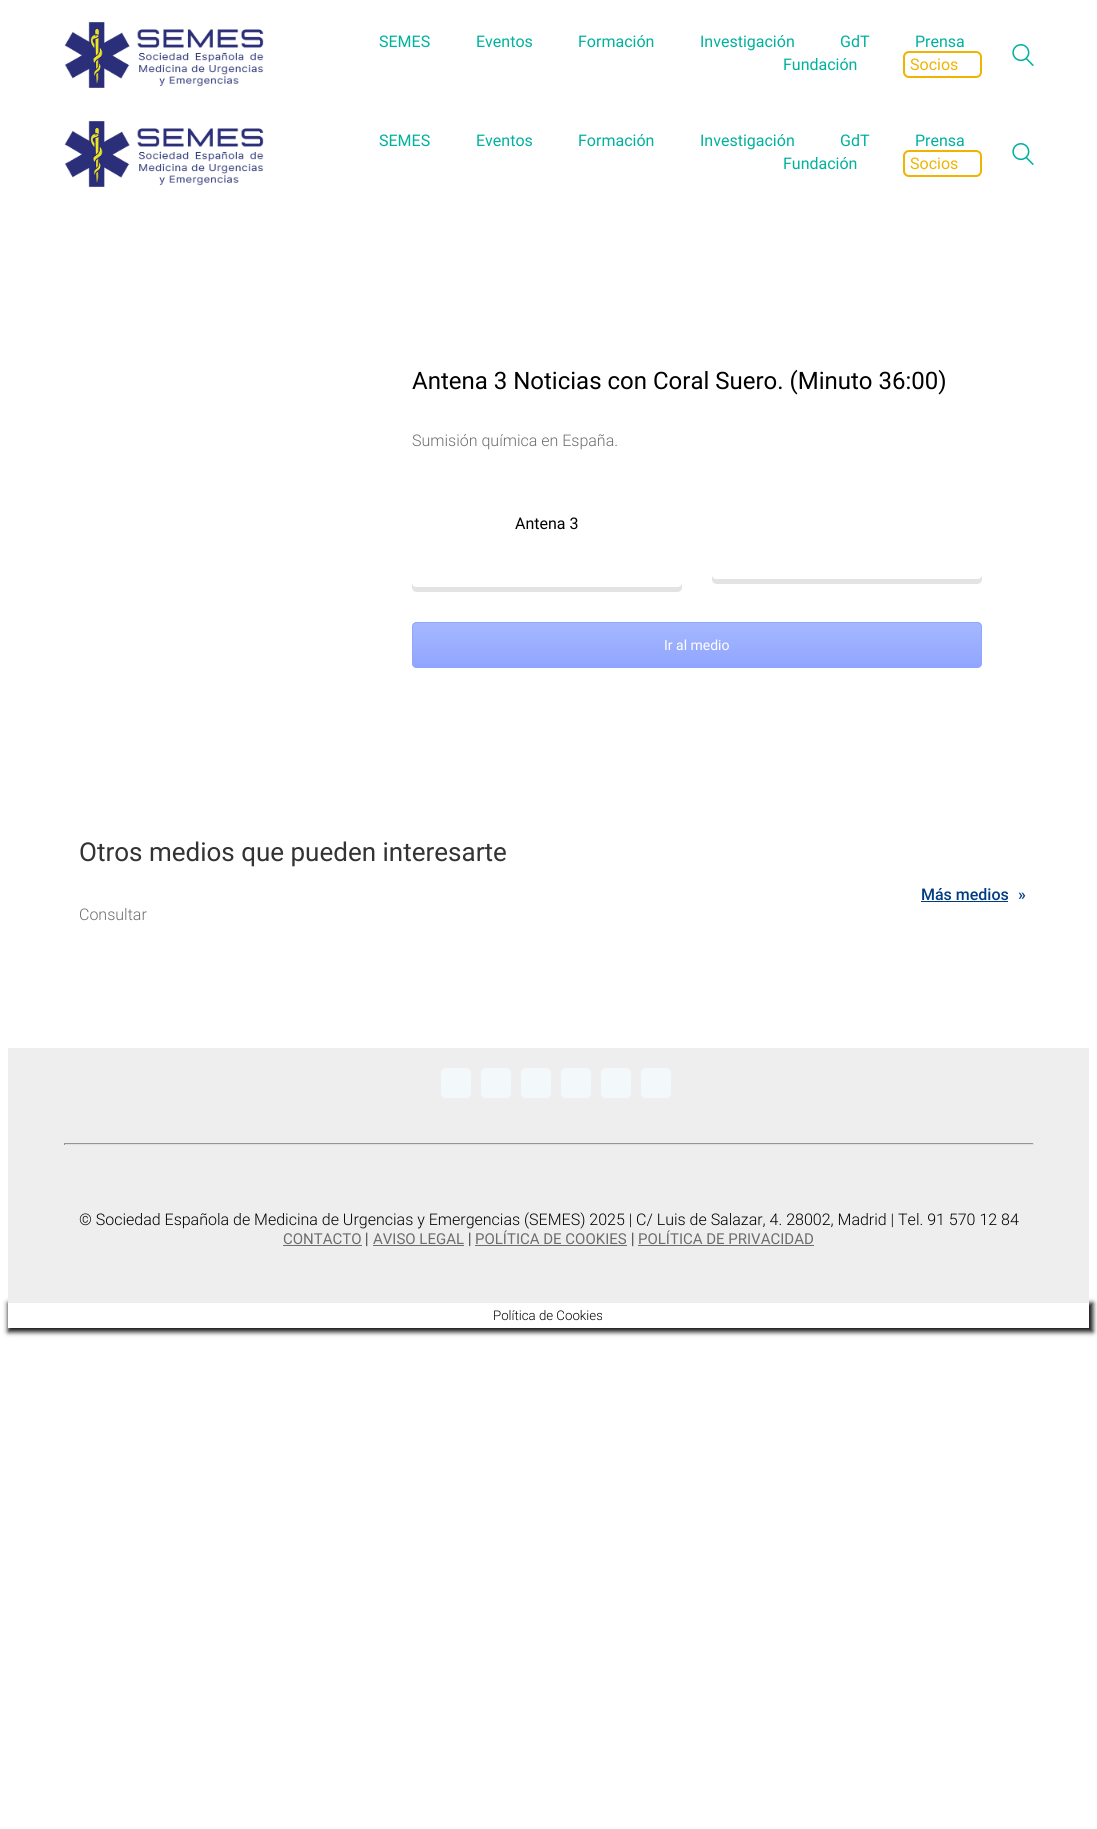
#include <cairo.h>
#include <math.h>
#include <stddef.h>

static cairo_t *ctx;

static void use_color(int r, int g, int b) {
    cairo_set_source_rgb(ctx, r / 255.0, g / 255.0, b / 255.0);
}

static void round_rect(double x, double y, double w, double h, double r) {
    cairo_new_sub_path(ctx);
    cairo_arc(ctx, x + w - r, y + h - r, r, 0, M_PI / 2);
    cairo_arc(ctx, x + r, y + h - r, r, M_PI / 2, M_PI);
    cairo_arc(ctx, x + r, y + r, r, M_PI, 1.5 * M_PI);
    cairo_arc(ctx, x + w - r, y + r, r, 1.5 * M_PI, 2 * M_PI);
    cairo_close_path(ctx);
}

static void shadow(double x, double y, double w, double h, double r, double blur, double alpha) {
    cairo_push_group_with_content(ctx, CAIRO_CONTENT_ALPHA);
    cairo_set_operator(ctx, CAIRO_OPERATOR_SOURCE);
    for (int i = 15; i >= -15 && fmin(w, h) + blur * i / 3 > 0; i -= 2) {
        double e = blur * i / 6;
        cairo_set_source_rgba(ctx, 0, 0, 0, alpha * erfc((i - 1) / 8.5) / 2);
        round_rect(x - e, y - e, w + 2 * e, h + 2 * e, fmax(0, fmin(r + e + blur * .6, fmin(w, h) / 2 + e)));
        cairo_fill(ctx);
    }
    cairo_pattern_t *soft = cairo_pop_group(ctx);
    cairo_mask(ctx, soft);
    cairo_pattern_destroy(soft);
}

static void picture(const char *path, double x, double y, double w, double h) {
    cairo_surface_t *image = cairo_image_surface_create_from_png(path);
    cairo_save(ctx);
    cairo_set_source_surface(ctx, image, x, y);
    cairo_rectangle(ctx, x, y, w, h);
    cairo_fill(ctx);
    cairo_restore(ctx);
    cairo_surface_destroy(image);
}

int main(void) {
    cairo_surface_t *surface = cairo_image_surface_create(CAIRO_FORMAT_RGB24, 1097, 1829);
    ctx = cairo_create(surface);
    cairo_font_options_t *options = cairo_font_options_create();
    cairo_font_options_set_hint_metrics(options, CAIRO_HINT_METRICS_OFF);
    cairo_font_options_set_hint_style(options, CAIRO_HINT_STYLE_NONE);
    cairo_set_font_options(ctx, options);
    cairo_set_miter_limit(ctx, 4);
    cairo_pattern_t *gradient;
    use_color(255, 255, 255);
    cairo_paint(ctx);
    picture("img1.png", 64, 22, 200, 66);
    cairo_select_font_face(ctx, "Roboto", CAIRO_FONT_SLANT_NORMAL, CAIRO_FONT_WEIGHT_NORMAL);
    cairo_set_font_size(ctx, 16);
    use_color(0, 177, 158);
    cairo_move_to(ctx, 379, 47);
    cairo_show_text(ctx, "SEMES");
    cairo_move_to(ctx, 476, 47);
    cairo_show_text(ctx, "Eventos");
    cairo_move_to(ctx, 578, 47);
    cairo_show_text(ctx, "Formación");
    cairo_move_to(ctx, 700, 47);
    cairo_show_text(ctx, "Investigación");
    cairo_move_to(ctx, 840, 47);
    cairo_show_text(ctx, "GdT");
    cairo_move_to(ctx, 915, 47);
    cairo_show_text(ctx, "Prensa");
    cairo_move_to(ctx, 783, 70);
    cairo_show_text(ctx, "Fundación");
    round_rect(904, 52, 77, 25, 5);
    use_color(239, 179, 0);
    cairo_stroke(ctx);
    cairo_move_to(ctx, 910, 70);
    cairo_show_text(ctx, "Socios");
    picture("img2.png", 1012, 44, 22, 22);
    picture("img1.png", 64, 121, 200, 66);
    use_color(0, 177, 158);
    cairo_move_to(ctx, 379, 146);
    cairo_show_text(ctx, "SEMES");
    cairo_move_to(ctx, 476, 146);
    cairo_show_text(ctx, "Eventos");
    cairo_move_to(ctx, 578, 146);
    cairo_show_text(ctx, "Formación");
    cairo_move_to(ctx, 700, 146);
    cairo_show_text(ctx, "Investigación");
    cairo_move_to(ctx, 840, 146);
    cairo_show_text(ctx, "GdT");
    cairo_move_to(ctx, 915, 146);
    cairo_show_text(ctx, "Prensa");
    cairo_move_to(ctx, 783, 169);
    cairo_show_text(ctx, "Fundación");
    round_rect(904, 151, 77, 25, 5);
    use_color(239, 179, 0);
    cairo_stroke(ctx);
    cairo_move_to(ctx, 910, 169);
    cairo_show_text(ctx, "Socios");
    picture("img2.png", 1012, 143, 22, 22);
    cairo_set_font_size(ctx, 24);
    use_color(0, 0, 0);
    cairo_move_to(ctx, 412, 389);
    cairo_show_text(ctx, "Antena 3 Noticias con Coral Suero. (Minuto 36:00)");
    cairo_select_font_face(ctx, "Roboto Light", CAIRO_FONT_SLANT_NORMAL, CAIRO_FONT_WEIGHT_NORMAL);
    cairo_set_font_size(ctx, 16);
    use_color(109, 109, 109);
    cairo_move_to(ctx, 412, 446);
    cairo_show_text(ctx, "Sumisión química en España.");
    use_color(227, 227, 227);
    cairo_new_path(ctx);
    cairo_move_to(ctx, 412, 582);
    cairo_line_to(ctx, 412, 587);
    cairo_curve_to(ctx, 412, 590, 414, 592, 417, 592);
    cairo_line_to(ctx, 677, 592);
    cairo_curve_to(ctx, 680, 592, 682, 590, 682, 587);
    cairo_line_to(ctx, 682, 582);
    cairo_curve_to(ctx, 682, 585, 680, 587, 677, 587);
    cairo_line_to(ctx, 417, 587);
    cairo_curve_to(ctx, 414, 587, 412, 585, 412, 582);
    cairo_close_path(ctx);
    cairo_fill(ctx);
    use_color(255, 255, 255);
    round_rect(412, 485, 270, 102, 5);
    cairo_fill(ctx);
    cairo_select_font_face(ctx, "Roboto", CAIRO_FONT_SLANT_NORMAL, CAIRO_FONT_WEIGHT_NORMAL);
    use_color(0, 0, 0);
    cairo_move_to(ctx, 515, 529);
    cairo_show_text(ctx, "Antena 3");
    use_color(227, 227, 227);
    cairo_new_path(ctx);
    cairo_move_to(ctx, 712, 574);
    cairo_line_to(ctx, 712, 579);
    cairo_curve_to(ctx, 712, 582, 714, 584, 717, 584);
    cairo_line_to(ctx, 977, 584);
    cairo_curve_to(ctx, 980, 584, 982, 582, 982, 579);
    cairo_line_to(ctx, 982, 574);
    cairo_curve_to(ctx, 982, 577, 980, 579, 977, 579);
    cairo_line_to(ctx, 717, 579);
    cairo_curve_to(ctx, 714, 579, 712, 577, 712, 574);
    cairo_close_path(ctx);
    cairo_fill(ctx);
    use_color(255, 255, 255);
    round_rect(712, 485, 270, 94, 5);
    cairo_fill(ctx);
    use_color(143, 165, 255);
    round_rect(412, 622, 570, 46, 5);
    cairo_fill(ctx);
    cairo_save(ctx);
    round_rect(412, 622, 570, 46, 5);
    cairo_clip(ctx);
    gradient = cairo_pattern_create_linear(697, 623, 697, 667);
    cairo_pattern_add_color_stop_rgba(gradient, 0, 1, 1, 1, 0.2);
    cairo_pattern_add_color_stop_rgba(gradient, 1, 1, 1, 1, 0.01);
    cairo_set_source(ctx, gradient);
    cairo_pattern_destroy(gradient);
    cairo_rectangle(ctx, 412, 623, 570, 41);
    cairo_fill(ctx);
    cairo_restore(ctx);
    round_rect(412.5, 622.5, 569, 45, 4.5);
    cairo_set_line_width(ctx, 1);
    cairo_stroke(ctx);
    cairo_set_font_size(ctx, 14);
    use_color(255, 255, 255);
    cairo_move_to(ctx, 664, 650);
    cairo_show_text(ctx, "Ir al medio");
    cairo_set_font_size(ctx, 26);
    use_color(51, 51, 51);
    cairo_move_to(ctx, 79, 861);
    cairo_show_text(ctx, "Otros medios que pueden interesarte");
    cairo_select_font_face(ctx, "Roboto Light", CAIRO_FONT_SLANT_NORMAL, CAIRO_FONT_WEIGHT_NORMAL);
    cairo_set_font_size(ctx, 16);
    use_color(109, 109, 109);
    cairo_move_to(ctx, 79, 920);
    cairo_show_text(ctx, "Consultar");
    cairo_select_font_face(ctx, "Roboto Medium", CAIRO_FONT_SLANT_NORMAL, CAIRO_FONT_WEIGHT_NORMAL);
    use_color(0, 60, 132);
    cairo_move_to(ctx, 921, 900);
    cairo_show_text(ctx, "Más medios");
    cairo_rectangle(ctx, 921, 901, 87, 1);
    cairo_fill(ctx);
    cairo_move_to(ctx, 1018, 900);
    cairo_show_text(ctx, "»");
    cairo_save(ctx);
    cairo_set_fill_rule(ctx, CAIRO_FILL_RULE_EVEN_ODD);
    cairo_new_path(ctx);
    cairo_move_to(ctx, 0, 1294);
    cairo_line_to(ctx, 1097, 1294);
    cairo_line_to(ctx, 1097, 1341);
    cairo_line_to(ctx, 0, 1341);
    cairo_close_path(ctx);
    cairo_move_to(ctx, 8, 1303);
    cairo_line_to(ctx, 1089, 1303);
    cairo_line_to(ctx, 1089, 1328);
    cairo_line_to(ctx, 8, 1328);
    cairo_close_path(ctx);
    cairo_clip(ctx);
    use_color(22, 22, 22);
    shadow(8, 1303, 1085, 29, 0, 2.5, 1);
    cairo_restore(ctx);
    use_color(238, 238, 238);
    cairo_rectangle(ctx, 8, 1048, 1081, 255);
    cairo_fill(ctx);
    use_color(243, 248, 251);
    round_rect(441, 1068, 30, 30, 5);
    cairo_fill(ctx);
    round_rect(481, 1068, 30, 30, 5);
    cairo_fill(ctx);
    round_rect(521, 1068, 30, 30, 5);
    cairo_fill(ctx);
    round_rect(561, 1068, 30, 30, 5);
    cairo_fill(ctx);
    round_rect(601, 1068, 30, 30, 5);
    cairo_fill(ctx);
    round_rect(641, 1068, 30, 30, 5);
    cairo_fill(ctx);
    use_color(149, 149, 149);
    cairo_rectangle(ctx, 64, 1143, 970, 1);
    cairo_fill(ctx);
    use_color(224, 224, 224);
    cairo_rectangle(ctx, 1033, 1143, 1, 2);
    cairo_fill(ctx);
    cairo_rectangle(ctx, 64, 1144, 970, 1);
    cairo_fill(ctx);
    use_color(149, 149, 149);
    cairo_rectangle(ctx, 64, 1143, 1, 2);
    cairo_fill(ctx);
    cairo_select_font_face(ctx, "Roboto Light", CAIRO_FONT_SLANT_NORMAL, CAIRO_FONT_WEIGHT_NORMAL);
    use_color(0, 0, 0);
    cairo_move_to(ctx, 79, 1225);
    cairo_show_text(ctx, "© Sociedad Española de Medicina de Urgencias y Emergencias (SEMES) 2025 | C/ Luis de Salazar, 4. 28002, Madrid | Tel. 91 570 12 84");
    cairo_select_font_face(ctx, "Roboto", CAIRO_FONT_SLANT_NORMAL, CAIRO_FONT_WEIGHT_NORMAL);
    cairo_set_font_size(ctx, 15);
    use_color(109, 109, 109);
    cairo_move_to(ctx, 283, 1244);
    cairo_show_text(ctx, "CONTACTO");
    cairo_rectangle(ctx, 283, 1245, 79, 1);
    cairo_fill(ctx);
    cairo_select_font_face(ctx, "Roboto Light", CAIRO_FONT_SLANT_NORMAL, CAIRO_FONT_WEIGHT_NORMAL);
    cairo_set_font_size(ctx, 16);
    use_color(0, 0, 0);
    cairo_move_to(ctx, 365, 1244);
    cairo_show_text(ctx, "|");
    cairo_select_font_face(ctx, "Roboto", CAIRO_FONT_SLANT_NORMAL, CAIRO_FONT_WEIGHT_NORMAL);
    cairo_set_font_size(ctx, 15);
    use_color(109, 109, 109);
    cairo_move_to(ctx, 373, 1244);
    cairo_show_text(ctx, "AVISO LEGAL");
    cairo_rectangle(ctx, 373, 1245, 91, 1);
    cairo_fill(ctx);
    cairo_select_font_face(ctx, "Roboto Light", CAIRO_FONT_SLANT_NORMAL, CAIRO_FONT_WEIGHT_NORMAL);
    cairo_set_font_size(ctx, 16);
    use_color(0, 0, 0);
    cairo_move_to(ctx, 468, 1244);
    cairo_show_text(ctx, "|");
    cairo_select_font_face(ctx, "Roboto", CAIRO_FONT_SLANT_NORMAL, CAIRO_FONT_WEIGHT_NORMAL);
    cairo_set_font_size(ctx, 15);
    use_color(109, 109, 109);
    cairo_move_to(ctx, 475, 1244);
    cairo_show_text(ctx, "POLÍTICA DE COOKIES");
    cairo_rectangle(ctx, 475, 1245, 152, 1);
    cairo_fill(ctx);
    cairo_select_font_face(ctx, "Roboto Light", CAIRO_FONT_SLANT_NORMAL, CAIRO_FONT_WEIGHT_NORMAL);
    cairo_set_font_size(ctx, 16);
    use_color(0, 0, 0);
    cairo_move_to(ctx, 631, 1244);
    cairo_show_text(ctx, "|");
    cairo_select_font_face(ctx, "Roboto", CAIRO_FONT_SLANT_NORMAL, CAIRO_FONT_WEIGHT_NORMAL);
    cairo_set_font_size(ctx, 15);
    use_color(109, 109, 109);
    cairo_move_to(ctx, 638, 1244);
    cairo_show_text(ctx, "POLÍTICA DE PRIVACIDAD");
    cairo_rectangle(ctx, 638, 1245, 176, 1);
    cairo_fill(ctx);
    cairo_select_font_face(ctx, "Roboto Light", CAIRO_FONT_SLANT_NORMAL, CAIRO_FONT_WEIGHT_NORMAL);
    cairo_set_font_size(ctx, 13.25);
    use_color(0, 0, 0);
    cairo_move_to(ctx, 493, 1320);
    cairo_show_text(ctx, "Política de Cookies");
    cairo_surface_write_to_png(surface, "result.png");
    cairo_font_options_destroy(options);
    cairo_destroy(ctx);
    cairo_surface_destroy(surface);
    return 0;
}
